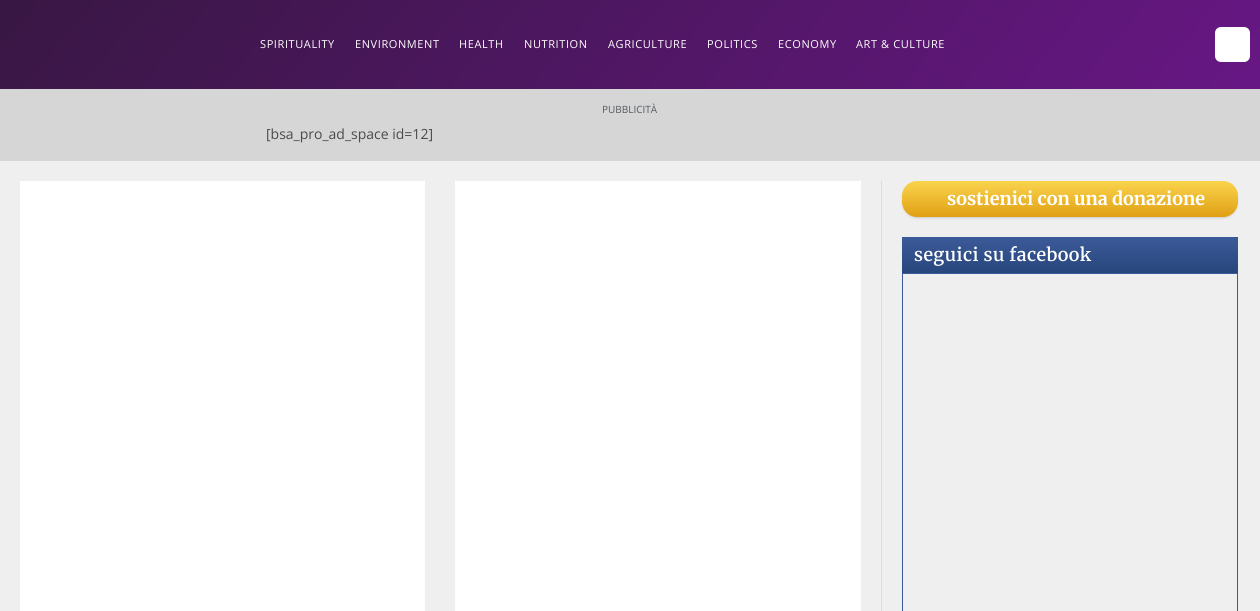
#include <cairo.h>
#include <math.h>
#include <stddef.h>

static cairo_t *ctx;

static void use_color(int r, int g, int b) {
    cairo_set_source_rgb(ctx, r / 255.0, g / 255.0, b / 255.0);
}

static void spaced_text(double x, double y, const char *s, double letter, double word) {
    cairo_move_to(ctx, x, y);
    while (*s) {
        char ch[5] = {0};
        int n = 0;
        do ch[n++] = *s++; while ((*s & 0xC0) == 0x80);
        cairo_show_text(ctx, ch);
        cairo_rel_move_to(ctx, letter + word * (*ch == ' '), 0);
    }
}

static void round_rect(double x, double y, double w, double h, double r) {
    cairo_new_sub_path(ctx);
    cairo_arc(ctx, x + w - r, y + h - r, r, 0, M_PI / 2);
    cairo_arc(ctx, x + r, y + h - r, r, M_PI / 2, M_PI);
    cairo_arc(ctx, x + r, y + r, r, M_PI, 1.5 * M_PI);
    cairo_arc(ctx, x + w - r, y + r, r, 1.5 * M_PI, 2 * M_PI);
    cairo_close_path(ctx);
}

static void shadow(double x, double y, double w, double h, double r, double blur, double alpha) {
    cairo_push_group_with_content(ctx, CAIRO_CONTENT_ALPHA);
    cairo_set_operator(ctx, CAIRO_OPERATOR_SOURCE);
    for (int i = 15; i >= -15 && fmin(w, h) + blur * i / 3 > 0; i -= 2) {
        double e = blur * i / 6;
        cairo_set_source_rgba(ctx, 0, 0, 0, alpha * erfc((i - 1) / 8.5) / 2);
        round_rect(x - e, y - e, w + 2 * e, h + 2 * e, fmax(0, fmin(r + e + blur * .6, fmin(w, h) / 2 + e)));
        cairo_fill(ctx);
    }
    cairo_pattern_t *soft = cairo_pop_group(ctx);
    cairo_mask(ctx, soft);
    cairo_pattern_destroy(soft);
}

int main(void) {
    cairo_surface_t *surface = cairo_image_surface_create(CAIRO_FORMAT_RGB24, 1260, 611);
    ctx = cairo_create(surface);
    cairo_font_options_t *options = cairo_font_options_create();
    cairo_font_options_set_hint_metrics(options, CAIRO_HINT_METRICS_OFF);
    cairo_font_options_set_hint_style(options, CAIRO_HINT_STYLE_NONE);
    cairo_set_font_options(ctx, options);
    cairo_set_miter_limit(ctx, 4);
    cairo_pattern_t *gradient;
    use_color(214, 214, 214);
    cairo_paint(ctx);
    gradient = cairo_pattern_create_linear(238, -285, 1022, 373);
    cairo_pattern_add_color_stop_rgba(gradient, 0, 0.22, 0.09, 0.263, 1);
    cairo_pattern_add_color_stop_rgba(gradient, 1, 0.404, 0.09, 0.518, 1);
    cairo_set_source(ctx, gradient);
    cairo_pattern_destroy(gradient);
    cairo_rectangle(ctx, 0, 0, 1260, 89);
    cairo_fill(ctx);
    cairo_select_font_face(ctx, "Open Sans", CAIRO_FONT_SLANT_NORMAL, CAIRO_FONT_WEIGHT_NORMAL);
    cairo_set_font_size(ctx, 11);
    use_color(255, 255, 255);
    spaced_text(260, 48, "SPIRITUALITY", 0.6, 0);
    spaced_text(355, 48, "ENVIRONMENT", 0.6, 0);
    spaced_text(459, 48, "HEALTH", 0.6, 0);
    spaced_text(524, 48, "NUTRITION", 0.6, 0);
    spaced_text(608, 48, "AGRICULTURE", 0.6, 0);
    spaced_text(707, 48, "POLITICS", 0.6, 0);
    spaced_text(778, 48, "ECONOMY", 0.6, 0);
    spaced_text(856, 48, "ART & CULTURE", 0.6, 0);
    round_rect(1215, 27, 35, 35, 6);
    cairo_fill(ctx);
    cairo_set_font_size(ctx, 10);
    use_color(84, 89, 95);
    cairo_move_to(ctx, 602, 113);
    cairo_show_text(ctx, "PUBBLICITÀ");
    cairo_set_font_size(ctx, 14);
    use_color(74, 74, 74);
    cairo_move_to(ctx, 266, 139);
    cairo_show_text(ctx, "[bsa_pro_ad_space id=12]");
    use_color(239, 239, 239);
    cairo_rectangle(ctx, 0, 161, 1260, 450);
    cairo_fill(ctx);
    use_color(220, 220, 220);
    cairo_rectangle(ctx, 881, 181, 1, 430);
    cairo_fill(ctx);
    use_color(255, 255, 255);
    cairo_rectangle(ctx, 20, 181, 405, 430);
    cairo_fill(ctx);
    cairo_rectangle(ctx, 455, 181, 406, 430);
    cairo_fill(ctx);
    use_color(0, 0, 0);
    shadow(905, 186, 330, 30, 12, 2, 0.5);
    gradient = cairo_pattern_create_linear(1070, 181, 1070, 217);
    cairo_pattern_add_color_stop_rgba(gradient, 0, 0.98, 0.831, 0.302, 1);
    cairo_pattern_add_color_stop_rgba(gradient, 1, 0.878, 0.627, 0.078, 1);
    cairo_set_source(ctx, gradient);
    cairo_pattern_destroy(gradient);
    round_rect(902, 181, 336, 36, 15);
    cairo_fill(ctx);
    cairo_select_font_face(ctx, "Merriweather", CAIRO_FONT_SLANT_NORMAL, CAIRO_FONT_WEIGHT_BOLD);
    cairo_set_font_size(ctx, 18);
    use_color(255, 255, 255);
    cairo_move_to(ctx, 947, 205);
    cairo_show_text(ctx, "sostienici con una donazione");
    gradient = cairo_pattern_create_linear(1070, 237, 1070, 273);
    cairo_pattern_add_color_stop_rgba(gradient, 0, 0.235, 0.353, 0.6, 1);
    cairo_pattern_add_color_stop_rgba(gradient, 1, 0.153, 0.275, 0.486, 1);
    cairo_set_source(ctx, gradient);
    cairo_pattern_destroy(gradient);
    cairo_rectangle(ctx, 902, 237, 336, 36);
    cairo_fill(ctx);
    cairo_select_font_face(ctx, "Merriweather SemiBold", CAIRO_FONT_SLANT_NORMAL, CAIRO_FONT_WEIGHT_NORMAL);
    use_color(255, 255, 255);
    spaced_text(914, 261, "seguici su facebook", 0.4, 0);
    cairo_rectangle(ctx, 902.5, 273.5, 335, 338);
    use_color(60, 90, 153);
    cairo_set_line_width(ctx, 1);
    cairo_stroke(ctx);
    cairo_surface_write_to_png(surface, "result.png");
    cairo_font_options_destroy(options);
    cairo_destroy(ctx);
    cairo_surface_destroy(surface);
    return 0;
}
